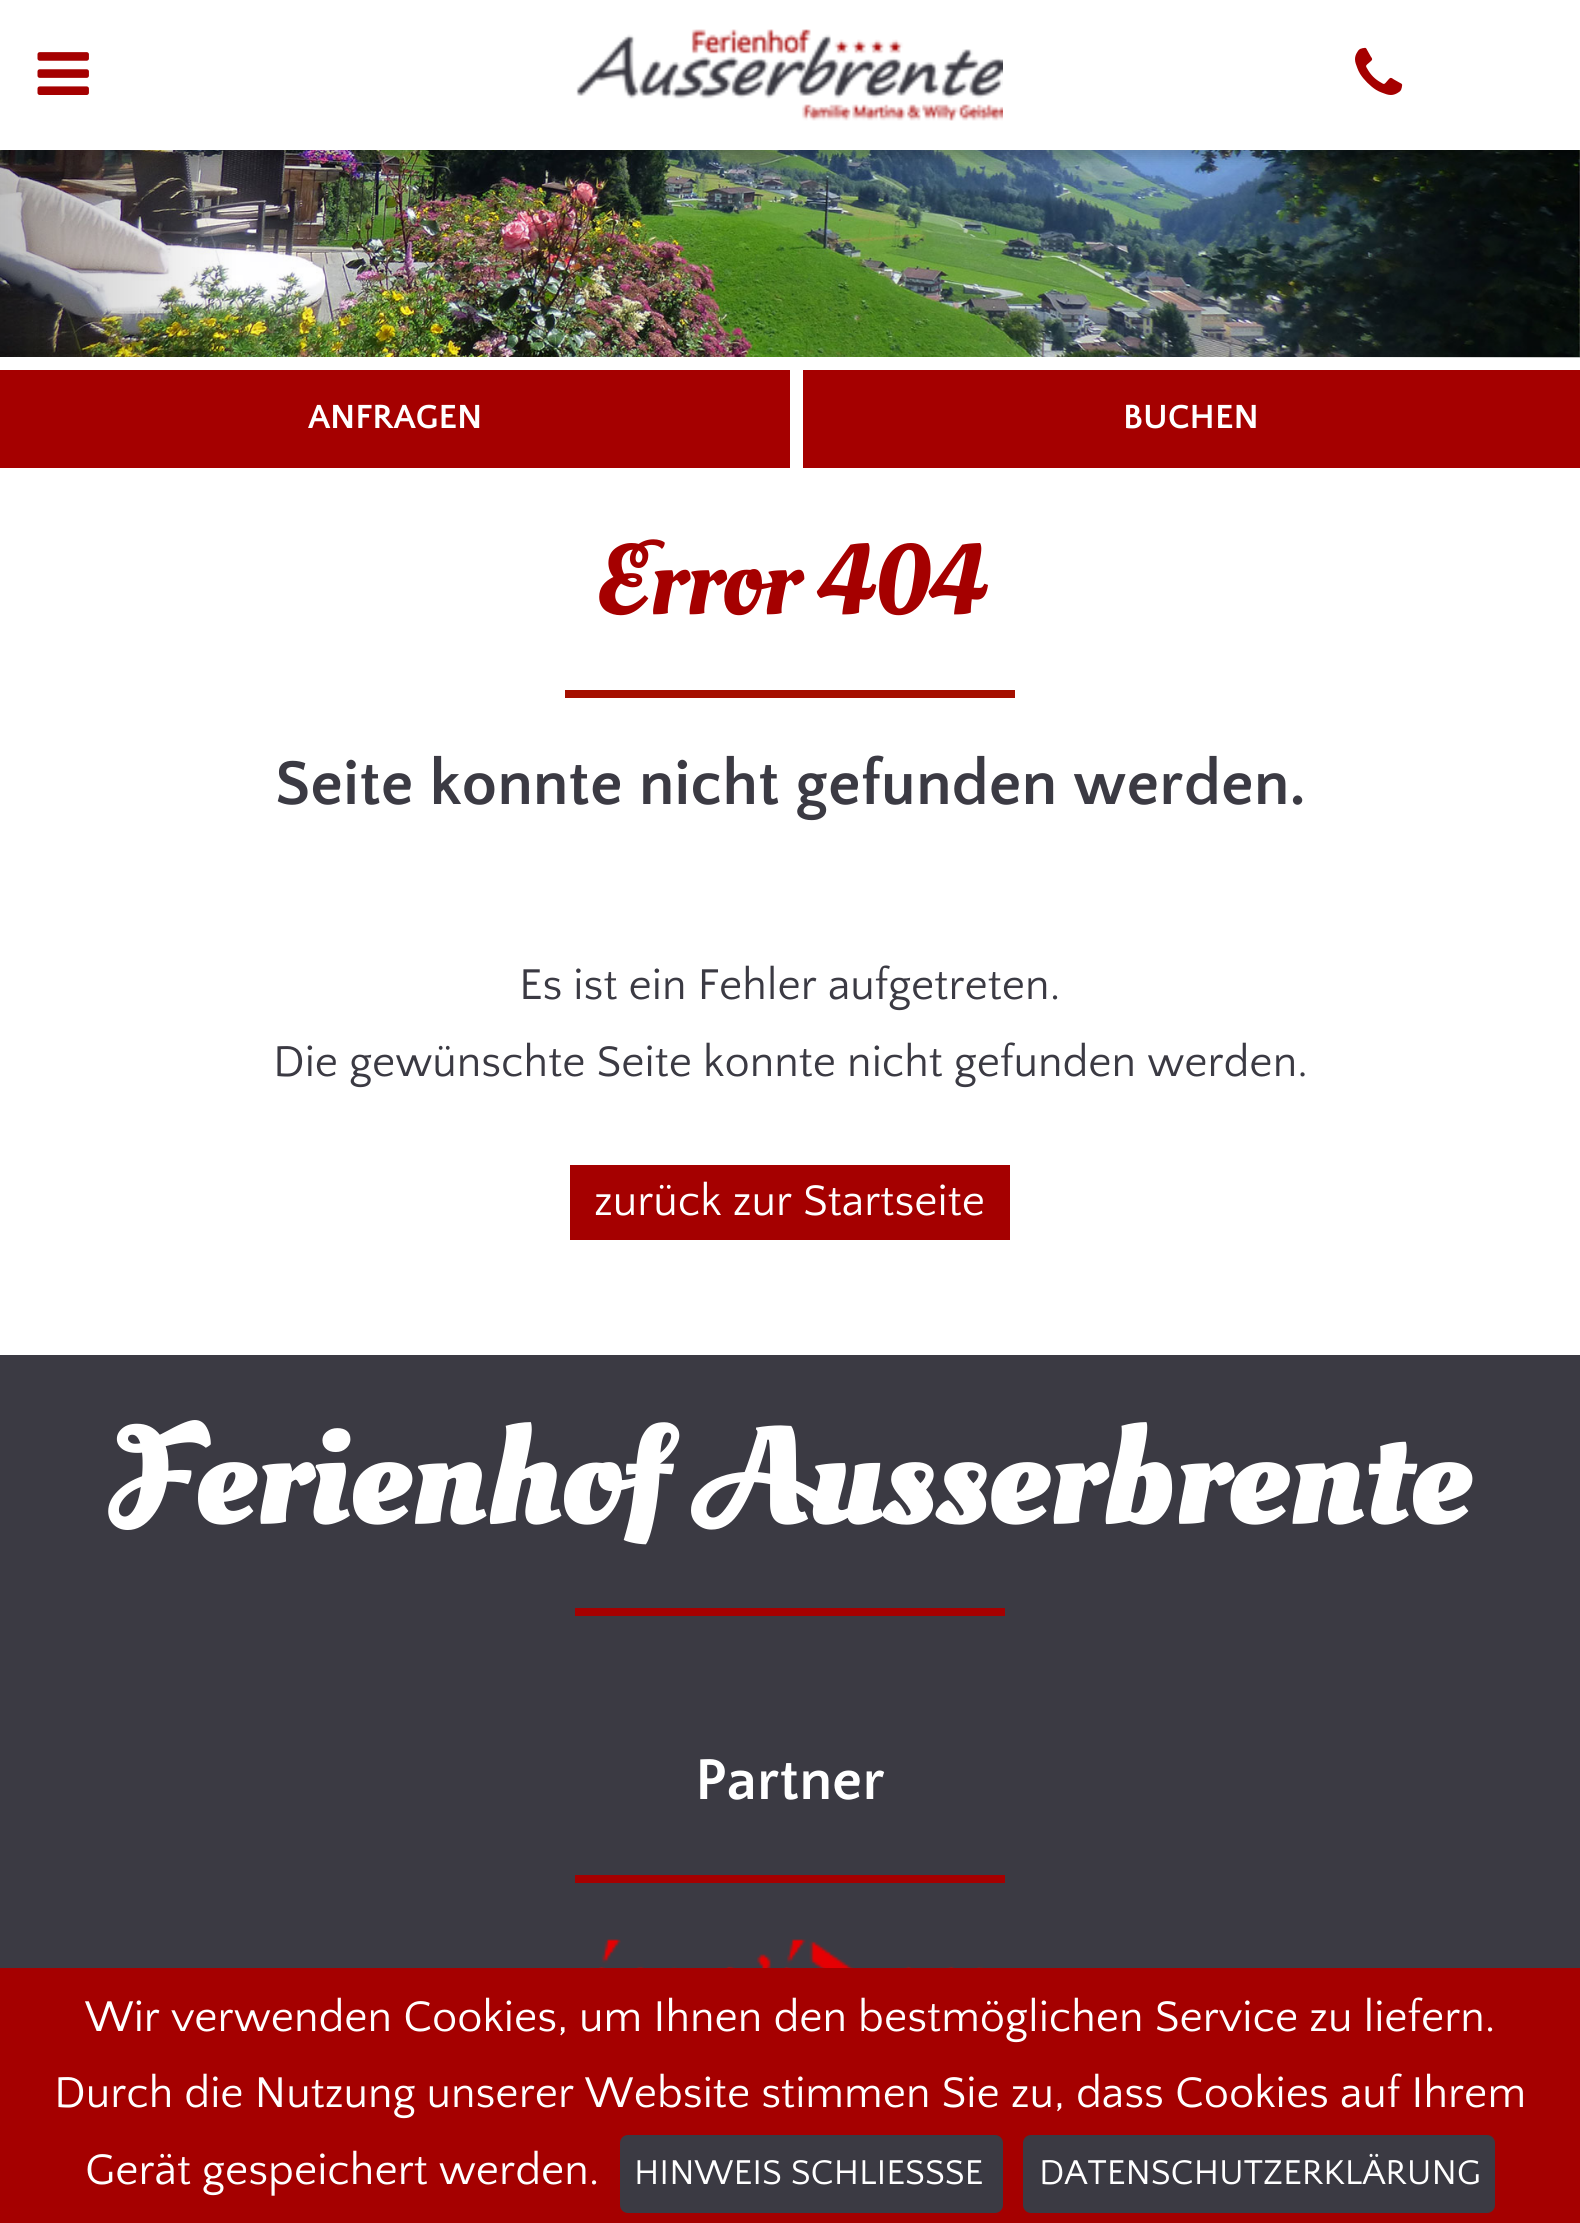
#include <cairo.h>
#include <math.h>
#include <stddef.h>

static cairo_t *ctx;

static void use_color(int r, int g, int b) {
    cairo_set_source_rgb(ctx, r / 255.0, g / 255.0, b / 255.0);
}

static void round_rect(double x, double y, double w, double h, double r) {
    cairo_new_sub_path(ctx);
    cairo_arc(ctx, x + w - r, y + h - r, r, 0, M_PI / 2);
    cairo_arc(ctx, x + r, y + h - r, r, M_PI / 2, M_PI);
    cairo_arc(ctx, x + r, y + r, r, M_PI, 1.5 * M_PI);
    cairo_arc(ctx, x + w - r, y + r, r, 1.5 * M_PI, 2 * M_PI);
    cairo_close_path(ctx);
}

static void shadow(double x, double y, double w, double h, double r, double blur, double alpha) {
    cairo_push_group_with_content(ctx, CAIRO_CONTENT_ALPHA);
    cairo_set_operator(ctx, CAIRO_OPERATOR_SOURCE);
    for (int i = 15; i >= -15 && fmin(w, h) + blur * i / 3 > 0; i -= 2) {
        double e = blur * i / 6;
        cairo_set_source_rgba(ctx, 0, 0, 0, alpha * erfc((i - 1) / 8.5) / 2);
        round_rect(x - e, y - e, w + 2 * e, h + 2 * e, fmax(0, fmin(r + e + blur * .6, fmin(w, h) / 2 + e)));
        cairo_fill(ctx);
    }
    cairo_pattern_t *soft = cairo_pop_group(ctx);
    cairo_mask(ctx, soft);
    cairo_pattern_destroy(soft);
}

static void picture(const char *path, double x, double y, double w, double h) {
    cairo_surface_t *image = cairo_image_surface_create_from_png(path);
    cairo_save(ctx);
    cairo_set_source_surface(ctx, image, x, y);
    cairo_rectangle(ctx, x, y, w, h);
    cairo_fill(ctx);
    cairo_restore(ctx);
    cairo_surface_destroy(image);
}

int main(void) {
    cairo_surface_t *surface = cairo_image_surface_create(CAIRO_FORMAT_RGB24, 1580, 2223);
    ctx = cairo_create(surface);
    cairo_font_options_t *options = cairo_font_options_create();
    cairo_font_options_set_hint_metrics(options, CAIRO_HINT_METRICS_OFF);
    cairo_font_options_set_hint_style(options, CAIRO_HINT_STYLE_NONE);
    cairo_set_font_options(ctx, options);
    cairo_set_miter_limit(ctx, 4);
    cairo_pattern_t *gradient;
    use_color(255, 255, 255);
    cairo_paint(ctx);
    picture("img4.png", 0, 150, 1580, 207);
    gradient = cairo_pattern_create_linear(1343, 131, 1580, 131);
    cairo_pattern_add_color_stop_rgba(gradient, 0, 0, 0, 0, 0);
    cairo_pattern_add_color_stop_rgba(gradient, 1, 0, 0, 0, 0.25);
    cairo_set_source(ctx, gradient);
    cairo_pattern_destroy(gradient);
    cairo_rectangle(ctx, 1363, 150, 217, 208);
    cairo_fill(ctx);
    use_color(0, 0, 0);
    shadow(0, 8, 1580, 150, 0, 6, 0.2);
    use_color(255, 255, 255);
    cairo_rectangle(ctx, 0, 0, 1580, 150);
    cairo_fill(ctx);
    picture("img1.png", 37, 52, 52, 43);
    picture("img2.png", 576, 29, 427, 92);
    picture("img3.png", 1355, 47, 48, 48);
    use_color(165, 0, 0);
    cairo_rectangle(ctx, 0, 370, 790, 98);
    cairo_fill(ctx);
    cairo_select_font_face(ctx, "Quattrocento Sans", CAIRO_FONT_SLANT_NORMAL, CAIRO_FONT_WEIGHT_BOLD);
    cairo_set_font_size(ctx, 35);
    use_color(255, 255, 255);
    cairo_move_to(ctx, 308, 428);
    cairo_show_text(ctx, "ANFRAGEN");
    use_color(165, 0, 0);
    cairo_rectangle(ctx, 803, 370, 777, 98);
    cairo_fill(ctx);
    use_color(255, 255, 255);
    cairo_move_to(ctx, 1123, 428);
    cairo_show_text(ctx, "BUCHEN");
    cairo_select_font_face(ctx, "Oleo Script Swash Caps", CAIRO_FONT_SLANT_NORMAL, CAIRO_FONT_WEIGHT_NORMAL);
    cairo_set_font_size(ctx, 100);
    use_color(165, 0, 0);
    cairo_move_to(ctx, 594, 614);
    cairo_show_text(ctx, "Error 404");
    use_color(165, 15, 0);
    cairo_rectangle(ctx, 565, 690, 450, 8);
    cairo_fill(ctx);
    cairo_select_font_face(ctx, "Quattrocento Sans", CAIRO_FONT_SLANT_NORMAL, CAIRO_FONT_WEIGHT_BOLD);
    cairo_set_font_size(ctx, 65);
    use_color(59, 58, 67);
    cairo_move_to(ctx, 275, 804);
    cairo_show_text(ctx, "Seite konnte nicht gefunden werden.");
    cairo_select_font_face(ctx, "Quattrocento Sans", CAIRO_FONT_SLANT_NORMAL, CAIRO_FONT_WEIGHT_NORMAL);
    cairo_set_font_size(ctx, 45);
    cairo_move_to(ctx, 519, 999);
    cairo_show_text(ctx, "Es ist ein Fehler aufgetreten.");
    cairo_move_to(ctx, 273, 1076);
    cairo_show_text(ctx, "Die gewünschte Seite konnte nicht gefunden werden.");
    use_color(165, 0, 0);
    cairo_rectangle(ctx, 570, 1165, 440, 75);
    cairo_fill(ctx);
    use_color(255, 255, 255);
    cairo_move_to(ctx, 594, 1215);
    cairo_show_text(ctx, "zurück zur Startseite");
    use_color(59, 58, 67);
    cairo_rectangle(ctx, 0, 1355, 1580, 613);
    cairo_fill(ctx);
    cairo_select_font_face(ctx, "Oleo Script Swash Caps", CAIRO_FONT_SLANT_NORMAL, CAIRO_FONT_WEIGHT_BOLD);
    cairo_set_font_size(ctx, 137.5);
    use_color(255, 255, 255);
    cairo_move_to(ctx, 110, 1523);
    cairo_show_text(ctx, "Ferienhof Ausserbrente");
    use_color(165, 0, 0);
    cairo_rectangle(ctx, 575, 1608, 430, 8);
    cairo_fill(ctx);
    cairo_select_font_face(ctx, "Quattrocento Sans", CAIRO_FONT_SLANT_NORMAL, CAIRO_FONT_WEIGHT_BOLD);
    cairo_set_font_size(ctx, 60);
    use_color(255, 255, 255);
    cairo_move_to(ctx, 695, 1799);
    cairo_show_text(ctx, "Partner");
    use_color(165, 0, 0);
    cairo_rectangle(ctx, 575, 1875, 430, 8);
    cairo_fill(ctx);
    picture("img5.png", 599, 1939, 384, 29);
    cairo_rectangle(ctx, 0, 1968, 1580, 255);
    cairo_fill(ctx);
    cairo_select_font_face(ctx, "Quattrocento Sans", CAIRO_FONT_SLANT_NORMAL, CAIRO_FONT_WEIGHT_NORMAL);
    cairo_set_font_size(ctx, 45);
    use_color(255, 255, 255);
    cairo_move_to(ctx, 85, 2031);
    cairo_show_text(ctx, "Wir verwenden Cookies, um Ihnen den bestmöglichen Service zu liefern.");
    cairo_move_to(ctx, 54, 2107);
    cairo_show_text(ctx, "Durch die Nutzung unserer Website stimmen Sie zu, dass Cookies auf Ihrem");
    cairo_move_to(ctx, 85, 2184);
    cairo_show_text(ctx, "Gerät gespeichert werden.");
    use_color(59, 58, 67);
    round_rect(620, 2135, 383, 78, 8);
    cairo_fill(ctx);
    cairo_set_font_size(ctx, 36);
    use_color(255, 255, 255);
    cairo_move_to(ctx, 634, 2184);
    cairo_show_text(ctx, "HINWEIS SCHLIESSSE");
    use_color(59, 58, 67);
    round_rect(1023, 2135, 472, 78, 8);
    cairo_fill(ctx);
    use_color(255, 255, 255);
    cairo_move_to(ctx, 1039, 2184);
    cairo_show_text(ctx, "DATENSCHUTZERKLÄRUNG");
    cairo_surface_write_to_png(surface, "result.png");
    cairo_font_options_destroy(options);
    cairo_destroy(ctx);
    cairo_surface_destroy(surface);
    return 0;
}
